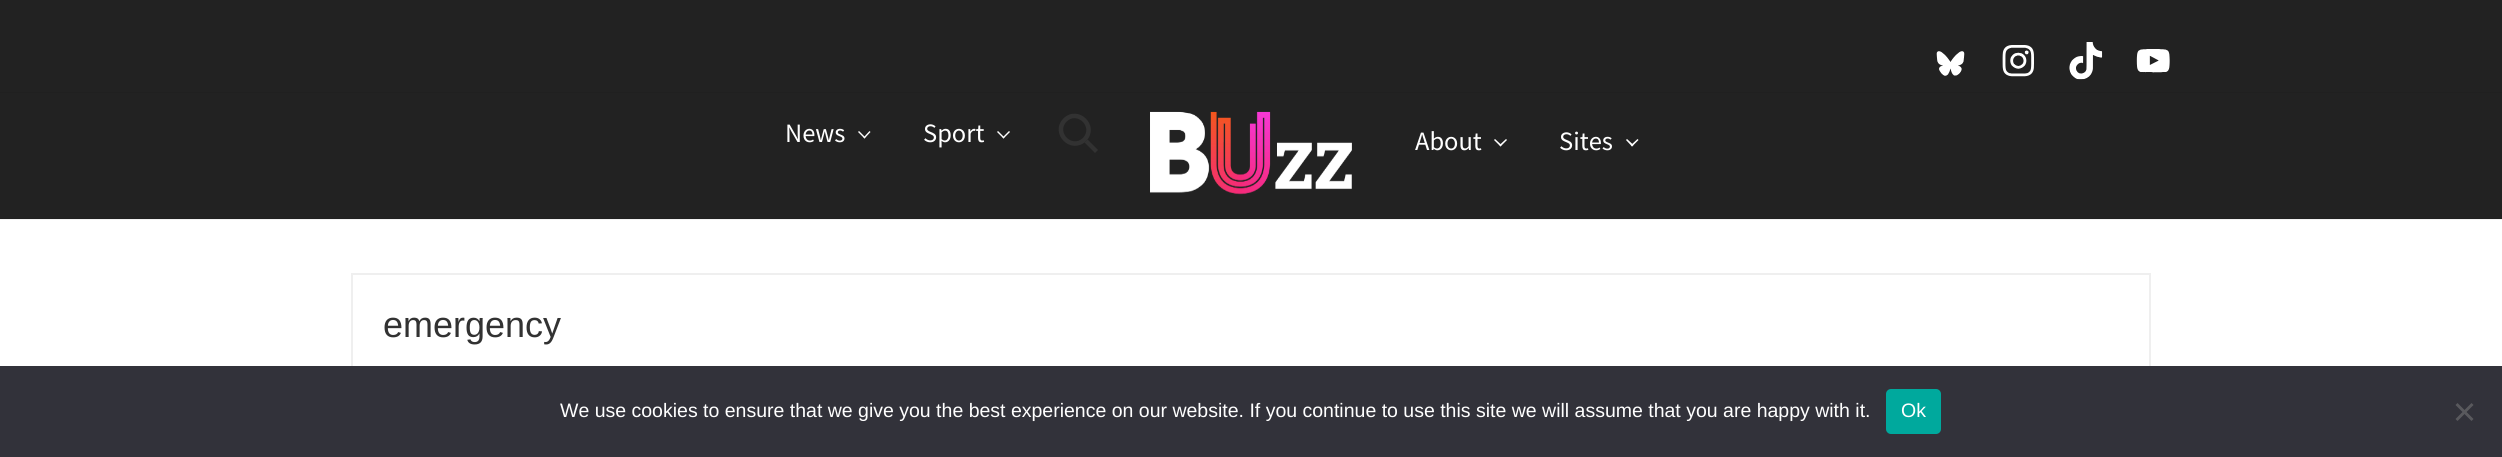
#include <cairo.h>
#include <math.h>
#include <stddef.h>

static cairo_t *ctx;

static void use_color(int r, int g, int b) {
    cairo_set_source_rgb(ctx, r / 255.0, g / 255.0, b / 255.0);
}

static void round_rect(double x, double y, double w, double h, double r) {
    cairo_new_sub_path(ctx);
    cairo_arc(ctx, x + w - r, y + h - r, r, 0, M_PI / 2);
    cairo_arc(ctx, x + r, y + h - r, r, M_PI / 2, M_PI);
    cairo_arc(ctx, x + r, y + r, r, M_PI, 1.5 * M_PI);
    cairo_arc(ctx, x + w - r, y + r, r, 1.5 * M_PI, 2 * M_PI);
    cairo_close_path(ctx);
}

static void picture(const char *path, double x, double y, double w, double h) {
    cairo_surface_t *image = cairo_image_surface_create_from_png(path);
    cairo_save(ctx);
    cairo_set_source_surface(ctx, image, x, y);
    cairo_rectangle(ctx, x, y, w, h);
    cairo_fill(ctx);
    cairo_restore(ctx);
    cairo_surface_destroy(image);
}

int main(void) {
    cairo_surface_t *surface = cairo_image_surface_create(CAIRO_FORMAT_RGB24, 2502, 457);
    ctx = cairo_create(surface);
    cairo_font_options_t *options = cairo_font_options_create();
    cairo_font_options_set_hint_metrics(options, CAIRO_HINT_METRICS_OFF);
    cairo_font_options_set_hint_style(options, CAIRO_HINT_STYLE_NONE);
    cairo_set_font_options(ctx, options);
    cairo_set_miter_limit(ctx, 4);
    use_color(255, 255, 255);
    cairo_paint(ctx);
    use_color(242, 242, 242);
    cairo_rectangle(ctx, 0, 219, 2502, 1);
    cairo_fill(ctx);
    use_color(34, 34, 34);
    cairo_rectangle(ctx, 0, 0, 2502, 92);
    cairo_fill(ctx);
    use_color(32, 32, 32);
    cairo_rectangle(ctx, 0, 92, 2502, 1);
    cairo_fill(ctx);
    picture("img1.png", 1936, 51, 29, 25);
    picture("img2.png", 2002, 45, 32, 32);
    picture("img3.png", 2069, 42, 34, 38);
    picture("img4.png", 2136, 49, 34, 24);
    use_color(34, 34, 34);
    cairo_rectangle(ctx, 0, 93, 2502, 125);
    cairo_fill(ctx);
    use_color(32, 32, 32);
    cairo_rectangle(ctx, 0, 218, 2502, 1);
    cairo_fill(ctx);
    cairo_select_font_face(ctx, "Source Sans Pro", CAIRO_FONT_SLANT_NORMAL, CAIRO_FONT_WEIGHT_NORMAL);
    cairo_set_font_size(ctx, 26.5);
    use_color(255, 255, 255);
    cairo_move_to(ctx, 785, 142);
    cairo_show_text(ctx, "News");
    cairo_new_path(ctx);
    cairo_move_to(ctx, 869.5, 131);
    cairo_line_to(ctx, 870.5, 132);
    cairo_line_to(ctx, 864.5, 138.5);
    cairo_line_to(ctx, 863.5, 137.5);
    cairo_close_path(ctx);
    cairo_fill(ctx);
    cairo_new_path(ctx);
    cairo_move_to(ctx, 859, 131);
    cairo_line_to(ctx, 865.5, 137.5);
    cairo_line_to(ctx, 864.5, 138.5);
    cairo_line_to(ctx, 858, 132);
    cairo_close_path(ctx);
    cairo_fill(ctx);
    cairo_move_to(ctx, 923, 142);
    cairo_show_text(ctx, "Sport");
    cairo_new_path(ctx);
    cairo_move_to(ctx, 1009, 131);
    cairo_line_to(ctx, 1010, 132);
    cairo_line_to(ctx, 1003.5, 138.5);
    cairo_line_to(ctx, 1002.5, 137.5);
    cairo_close_path(ctx);
    cairo_fill(ctx);
    cairo_new_path(ctx);
    cairo_move_to(ctx, 998, 131);
    cairo_line_to(ctx, 1004.5, 137.5);
    cairo_line_to(ctx, 1003.5, 138.5);
    cairo_line_to(ctx, 997, 132);
    cairo_close_path(ctx);
    cairo_fill(ctx);
    cairo_new_path(ctx);
    cairo_move_to(ctx, 1065, 120);
    cairo_curve_to(ctx, 1078, 107.5, 1097, 126.5, 1084.5, 139.5);
    cairo_curve_to(ctx, 1071.5, 152, 1052.5, 133, 1065, 120);
    cairo_close_path(ctx);
    use_color(50, 50, 50);
    cairo_set_line_width(ctx, 4.5);
    cairo_stroke(ctx);
    cairo_new_path(ctx);
    cairo_move_to(ctx, 1084.5, 142.5);
    cairo_line_to(ctx, 1087.5, 139.5);
    cairo_line_to(ctx, 1098, 150);
    cairo_line_to(ctx, 1095, 153);
    cairo_close_path(ctx);
    cairo_fill(ctx);
    picture("img5.png", 1150, 111, 202, 84);
    use_color(255, 255, 255);
    cairo_move_to(ctx, 1415, 150);
    cairo_show_text(ctx, "About");
    cairo_new_path(ctx);
    cairo_move_to(ctx, 1506, 139);
    cairo_line_to(ctx, 1507, 140);
    cairo_line_to(ctx, 1500.5, 146.5);
    cairo_line_to(ctx, 1499.5, 145);
    cairo_close_path(ctx);
    cairo_fill(ctx);
    cairo_new_path(ctx);
    cairo_move_to(ctx, 1495, 139);
    cairo_line_to(ctx, 1501.5, 145);
    cairo_line_to(ctx, 1500.5, 146.5);
    cairo_line_to(ctx, 1494, 140);
    cairo_close_path(ctx);
    cairo_fill(ctx);
    cairo_move_to(ctx, 1559, 150);
    cairo_show_text(ctx, "Sites");
    cairo_new_path(ctx);
    cairo_move_to(ctx, 1637.5, 139);
    cairo_line_to(ctx, 1638.5, 140);
    cairo_line_to(ctx, 1632, 146.5);
    cairo_line_to(ctx, 1631, 145);
    cairo_close_path(ctx);
    cairo_fill(ctx);
    cairo_new_path(ctx);
    cairo_move_to(ctx, 1627, 139);
    cairo_line_to(ctx, 1633.5, 145);
    cairo_line_to(ctx, 1632, 146.5);
    cairo_line_to(ctx, 1626, 140);
    cairo_close_path(ctx);
    cairo_fill(ctx);
    cairo_rectangle(ctx, 352, 274, 1798, 123);
    use_color(239, 239, 239);
    cairo_set_line_width(ctx, 2);
    cairo_stroke(ctx);
    cairo_select_font_face(ctx, "Liberation Sans", CAIRO_FONT_SLANT_NORMAL, CAIRO_FONT_WEIGHT_NORMAL);
    cairo_set_font_size(ctx, 36);
    use_color(50, 50, 50);
    cairo_move_to(ctx, 383, 337);
    cairo_show_text(ctx, "emergency");
    use_color(50, 50, 58);
    cairo_rectangle(ctx, 0, 366, 2502, 91);
    cairo_fill(ctx);
    cairo_set_font_size(ctx, 19.5);
    use_color(255, 255, 255);
    cairo_move_to(ctx, 560, 417);
    cairo_show_text(ctx, "We use cookies to ensure that we give you the best experience on our website. If you continue to use this site we will assume that you are happy with it.");
    use_color(0, 169, 157);
    round_rect(1886, 389, 55, 45, 5);
    cairo_fill(ctx);
    use_color(255, 255, 255);
    cairo_move_to(ctx, 1901, 417);
    cairo_show_text(ctx, "Ok");
    use_color(89, 89, 93);
    cairo_new_path(ctx);
    cairo_move_to(ctx, 2471.5, 403);
    cairo_line_to(ctx, 2473.5, 405);
    cairo_line_to(ctx, 2457.5, 421);
    cairo_line_to(ctx, 2455.5, 419);
    cairo_close_path(ctx);
    cairo_fill(ctx);
    cairo_new_path(ctx);
    cairo_move_to(ctx, 2455.5, 405);
    cairo_line_to(ctx, 2457.5, 403);
    cairo_line_to(ctx, 2473.5, 419);
    cairo_line_to(ctx, 2471.5, 421);
    cairo_close_path(ctx);
    cairo_fill(ctx);
    cairo_surface_write_to_png(surface, "result.png");
    cairo_font_options_destroy(options);
    cairo_destroy(ctx);
    cairo_surface_destroy(surface);
    return 0;
}
